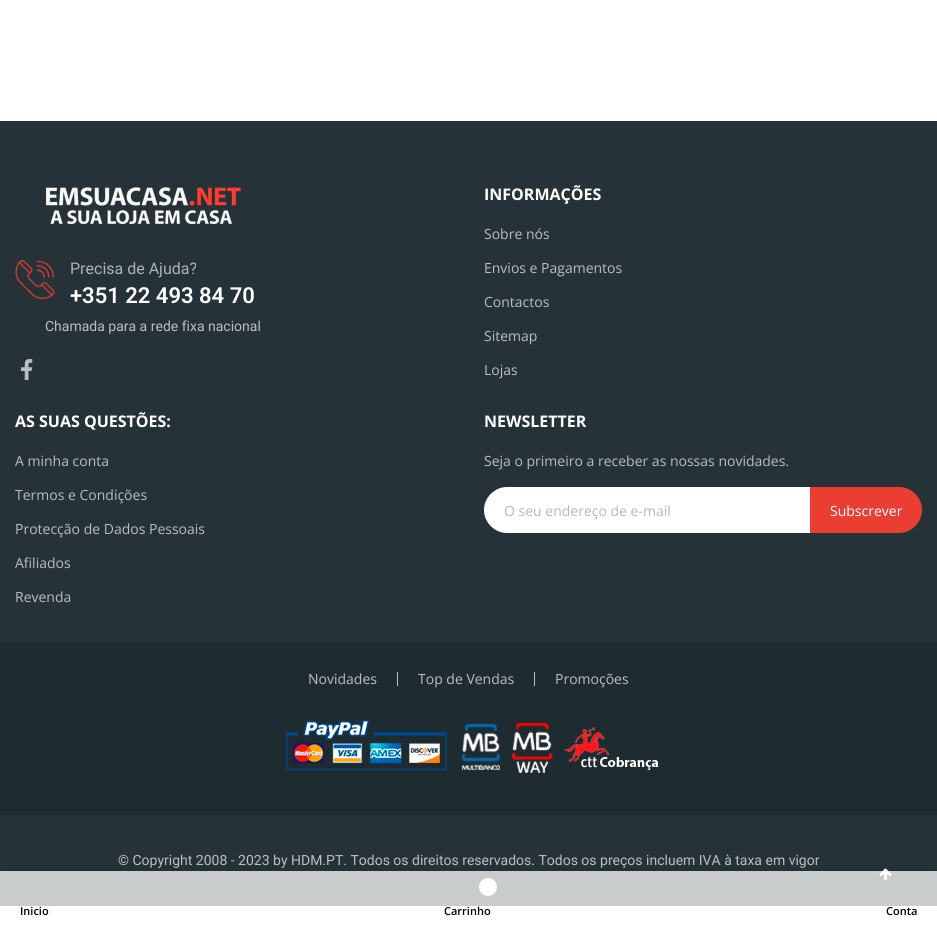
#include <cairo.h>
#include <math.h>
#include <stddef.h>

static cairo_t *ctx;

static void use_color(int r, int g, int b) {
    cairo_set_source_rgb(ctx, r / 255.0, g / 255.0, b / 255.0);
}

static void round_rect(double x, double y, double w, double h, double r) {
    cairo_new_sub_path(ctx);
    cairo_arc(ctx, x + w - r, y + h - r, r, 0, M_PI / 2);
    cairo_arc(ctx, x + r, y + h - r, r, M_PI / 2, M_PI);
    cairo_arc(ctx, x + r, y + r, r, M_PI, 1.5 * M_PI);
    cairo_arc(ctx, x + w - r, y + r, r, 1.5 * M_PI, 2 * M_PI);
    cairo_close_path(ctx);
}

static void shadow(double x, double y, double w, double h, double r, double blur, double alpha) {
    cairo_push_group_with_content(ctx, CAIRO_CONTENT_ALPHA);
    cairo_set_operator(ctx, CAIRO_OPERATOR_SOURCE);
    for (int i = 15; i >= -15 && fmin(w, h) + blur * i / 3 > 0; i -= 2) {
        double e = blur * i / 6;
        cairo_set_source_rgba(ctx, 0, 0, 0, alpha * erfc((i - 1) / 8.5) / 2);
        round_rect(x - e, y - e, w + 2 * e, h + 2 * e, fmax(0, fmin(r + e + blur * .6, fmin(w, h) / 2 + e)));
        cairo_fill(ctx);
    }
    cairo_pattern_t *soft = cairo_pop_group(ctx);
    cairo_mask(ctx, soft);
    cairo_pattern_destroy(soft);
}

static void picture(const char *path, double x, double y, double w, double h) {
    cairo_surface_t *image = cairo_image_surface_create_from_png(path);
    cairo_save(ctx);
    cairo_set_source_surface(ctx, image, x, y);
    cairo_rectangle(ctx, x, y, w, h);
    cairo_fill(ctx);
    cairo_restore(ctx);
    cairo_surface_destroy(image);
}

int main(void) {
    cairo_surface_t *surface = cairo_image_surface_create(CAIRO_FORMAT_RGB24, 937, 926);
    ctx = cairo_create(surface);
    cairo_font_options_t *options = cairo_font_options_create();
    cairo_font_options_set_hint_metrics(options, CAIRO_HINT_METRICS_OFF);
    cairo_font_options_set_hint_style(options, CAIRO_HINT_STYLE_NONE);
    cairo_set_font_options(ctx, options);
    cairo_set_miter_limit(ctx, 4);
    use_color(255, 255, 255);
    cairo_paint(ctx);
    use_color(37, 50, 55);
    cairo_rectangle(ctx, 0, 121, 937, 521);
    cairo_fill(ctx);
    picture("img1.png", 46, 187, 195, 37);
    picture("img2.png", 15, 260, 40, 39);
    cairo_select_font_face(ctx, "Roboto", CAIRO_FONT_SLANT_NORMAL, CAIRO_FONT_WEIGHT_NORMAL);
    cairo_set_font_size(ctx, 16);
    use_color(174, 179, 181);
    cairo_move_to(ctx, 70, 274);
    cairo_show_text(ctx, "Precisa de Ajuda?");
    cairo_select_font_face(ctx, "Roboto SemiBold", CAIRO_FONT_SLANT_NORMAL, CAIRO_FONT_WEIGHT_NORMAL);
    cairo_set_font_size(ctx, 22);
    use_color(255, 255, 255);
    cairo_move_to(ctx, 70, 303);
    cairo_show_text(ctx, "+351 22 493 84 70");
    cairo_select_font_face(ctx, "Roboto", CAIRO_FONT_SLANT_NORMAL, CAIRO_FONT_WEIGHT_NORMAL);
    cairo_set_font_size(ctx, 14);
    use_color(187, 191, 193);
    cairo_move_to(ctx, 45, 331);
    cairo_show_text(ctx, "Chamada para a rede fixa nacional");
    picture("img3.png", 21, 359, 12, 21);
    cairo_select_font_face(ctx, "Open Sans", CAIRO_FONT_SLANT_NORMAL, CAIRO_FONT_WEIGHT_BOLD);
    cairo_set_font_size(ctx, 16);
    use_color(255, 255, 255);
    cairo_move_to(ctx, 484, 200);
    cairo_show_text(ctx, "INFORMAÇÕES");
    cairo_select_font_face(ctx, "Open Sans", CAIRO_FONT_SLANT_NORMAL, CAIRO_FONT_WEIGHT_NORMAL);
    cairo_set_font_size(ctx, 14);
    use_color(187, 191, 193);
    cairo_move_to(ctx, 484, 239);
    cairo_show_text(ctx, "Sobre nós");
    cairo_move_to(ctx, 484, 273);
    cairo_show_text(ctx, "Envios e Pagamentos");
    cairo_move_to(ctx, 484, 307);
    cairo_show_text(ctx, "Contactos");
    cairo_move_to(ctx, 484, 341);
    cairo_show_text(ctx, "Sitemap");
    cairo_move_to(ctx, 484, 375);
    cairo_show_text(ctx, "Lojas");
    cairo_select_font_face(ctx, "Open Sans", CAIRO_FONT_SLANT_NORMAL, CAIRO_FONT_WEIGHT_BOLD);
    cairo_set_font_size(ctx, 16);
    use_color(255, 255, 255);
    cairo_move_to(ctx, 15, 427);
    cairo_show_text(ctx, "AS SUAS QUESTÕES:");
    cairo_select_font_face(ctx, "Open Sans", CAIRO_FONT_SLANT_NORMAL, CAIRO_FONT_WEIGHT_NORMAL);
    cairo_set_font_size(ctx, 14);
    use_color(187, 191, 193);
    cairo_move_to(ctx, 15, 466);
    cairo_show_text(ctx, "A minha conta");
    cairo_move_to(ctx, 15, 500);
    cairo_show_text(ctx, "Termos e Condições");
    cairo_move_to(ctx, 15, 534);
    cairo_show_text(ctx, "Protecção de Dados Pessoais");
    cairo_move_to(ctx, 15, 568);
    cairo_show_text(ctx, "Afiliados");
    cairo_move_to(ctx, 15, 602);
    cairo_show_text(ctx, "Revenda");
    cairo_select_font_face(ctx, "Open Sans", CAIRO_FONT_SLANT_NORMAL, CAIRO_FONT_WEIGHT_BOLD);
    cairo_set_font_size(ctx, 16);
    use_color(255, 255, 255);
    cairo_move_to(ctx, 484, 427);
    cairo_show_text(ctx, "NEWSLETTER");
    cairo_select_font_face(ctx, "Open Sans", CAIRO_FONT_SLANT_NORMAL, CAIRO_FONT_WEIGHT_NORMAL);
    cairo_set_font_size(ctx, 14);
    use_color(187, 191, 193);
    cairo_move_to(ctx, 484, 466);
    cairo_show_text(ctx, "Seja o primeiro a receber as nossas novidades.");
    use_color(255, 255, 255);
    cairo_new_path(ctx);
    cairo_move_to(ctx, 507, 487);
    cairo_line_to(ctx, 810, 487);
    cairo_line_to(ctx, 810, 533);
    cairo_line_to(ctx, 507, 533);
    cairo_curve_to(ctx, 494.5, 533, 484, 522.5, 484, 510);
    cairo_curve_to(ctx, 484, 497.5, 494.5, 487, 507, 487);
    cairo_close_path(ctx);
    cairo_fill(ctx);
    use_color(183, 183, 183);
    cairo_move_to(ctx, 504, 516);
    cairo_show_text(ctx, "O seu endereço de e-mail");
    use_color(235, 62, 50);
    cairo_new_path(ctx);
    cairo_move_to(ctx, 810, 487);
    cairo_line_to(ctx, 899, 487);
    cairo_curve_to(ctx, 911.5, 487, 922, 497.5, 922, 510);
    cairo_curve_to(ctx, 922, 522.5, 911.5, 533, 899, 533);
    cairo_line_to(ctx, 810, 533);
    cairo_close_path(ctx);
    cairo_fill(ctx);
    use_color(255, 255, 255);
    cairo_move_to(ctx, 830, 516);
    cairo_show_text(ctx, "Subscrever");
    use_color(30, 44, 49);
    cairo_rectangle(ctx, 0, 642, 937, 173);
    cairo_fill(ctx);
    use_color(185, 190, 191);
    cairo_rectangle(ctx, 397, 672, 1, 14);
    cairo_fill(ctx);
    use_color(187, 191, 193);
    cairo_move_to(ctx, 308, 684);
    cairo_show_text(ctx, "Novidades");
    use_color(185, 190, 191);
    cairo_rectangle(ctx, 534, 672, 1, 14);
    cairo_fill(ctx);
    use_color(187, 191, 193);
    cairo_move_to(ctx, 418, 684);
    cairo_show_text(ctx, "Top de Vendas");
    cairo_move_to(ctx, 555, 684);
    cairo_show_text(ctx, "Promoções");
    picture("img4.png", 286, 720, 372, 53);
    use_color(37, 50, 55);
    cairo_rectangle(ctx, 0, 815, 937, 91);
    cairo_fill(ctx);
    cairo_select_font_face(ctx, "Roboto", CAIRO_FONT_SLANT_NORMAL, CAIRO_FONT_WEIGHT_NORMAL);
    use_color(187, 191, 193);
    cairo_move_to(ctx, 118, 865);
    cairo_show_text(ctx, "© Copyright 2008 - 2023 by HDM.PT. Todos os direitos reservados. Todos os preços incluem IVA à taxa em vigor");
    picture("img5.png", 879, 868, 13, 12);
    cairo_save(ctx);
    cairo_rectangle(ctx, 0, 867, 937, 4);
    cairo_clip(ctx);
    use_color(0, 0, 0);
    shadow(0, 871, 937, 55, 0, 4.5, 0.12);
    cairo_restore(ctx);
    cairo_set_source_rgba(ctx, 1, 1, 1, 0.75);
    cairo_rectangle(ctx, 0, 871, 937, 35);
    cairo_fill(ctx);
    cairo_select_font_face(ctx, "Open Sans SemiBold", CAIRO_FONT_SLANT_NORMAL, CAIRO_FONT_WEIGHT_NORMAL);
    cairo_set_font_size(ctx, 11);
    use_color(0, 0, 0);
    cairo_move_to(ctx, 20, 915);
    cairo_show_text(ctx, "Inicio");
    use_color(255, 255, 255);
    cairo_new_path(ctx);
    cairo_arc(ctx, 488, 887, 9, 0, 2 * M_PI);
    cairo_fill(ctx);
    use_color(0, 0, 0);
    cairo_move_to(ctx, 444, 915);
    cairo_show_text(ctx, "Carrinho");
    cairo_move_to(ctx, 886, 915);
    cairo_show_text(ctx, "Conta");
    cairo_surface_write_to_png(surface, "result.png");
    cairo_font_options_destroy(options);
    cairo_destroy(ctx);
    cairo_surface_destroy(surface);
    return 0;
}
